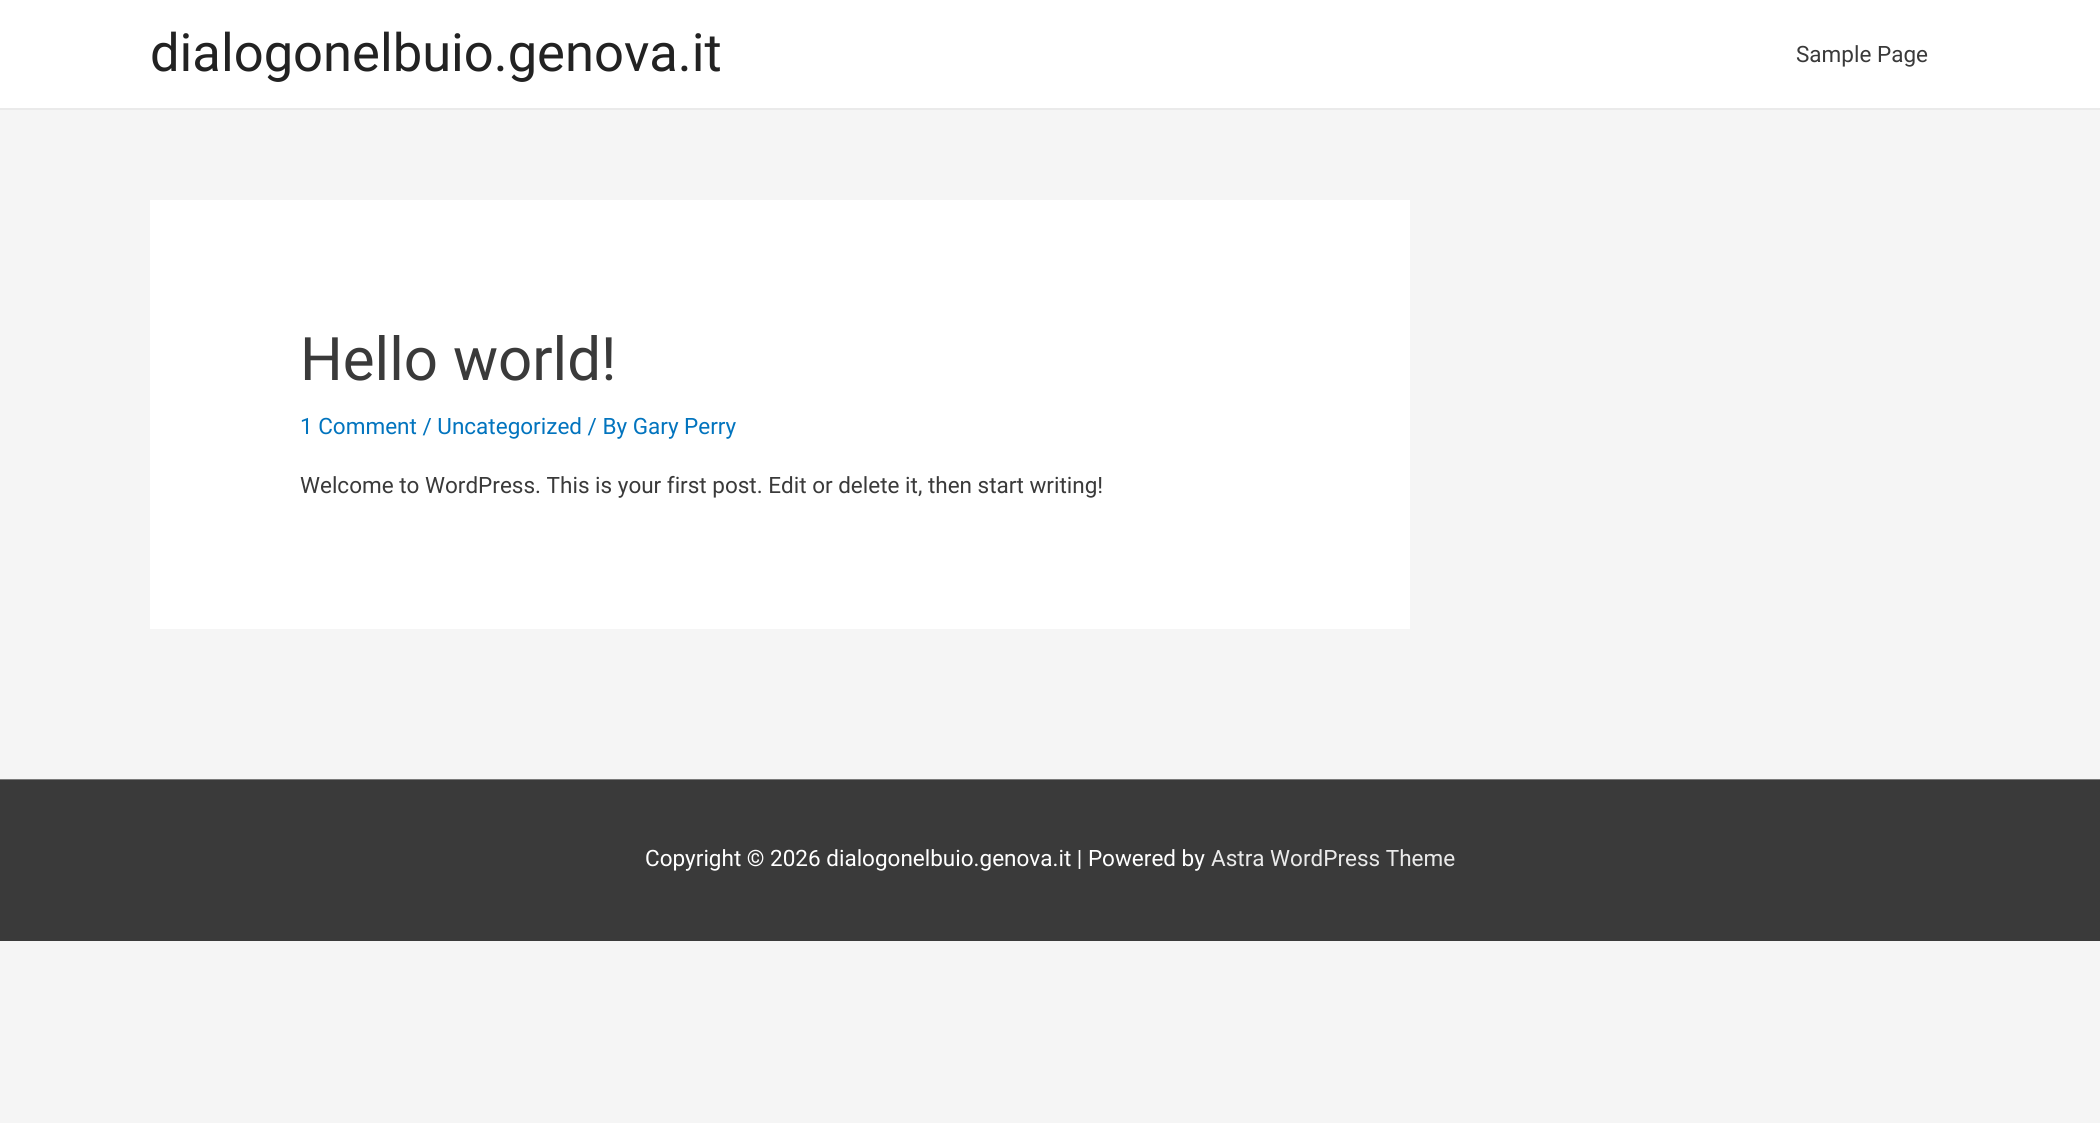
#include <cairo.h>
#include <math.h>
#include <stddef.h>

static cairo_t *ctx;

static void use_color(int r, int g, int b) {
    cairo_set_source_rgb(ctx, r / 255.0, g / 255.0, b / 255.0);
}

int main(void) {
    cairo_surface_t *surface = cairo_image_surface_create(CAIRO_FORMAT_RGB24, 2100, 1123);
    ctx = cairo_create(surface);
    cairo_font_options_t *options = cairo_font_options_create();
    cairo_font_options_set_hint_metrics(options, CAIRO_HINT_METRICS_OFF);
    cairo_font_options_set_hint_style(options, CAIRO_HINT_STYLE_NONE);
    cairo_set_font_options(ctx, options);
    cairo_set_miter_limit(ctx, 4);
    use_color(245, 245, 245);
    cairo_paint(ctx);
    use_color(255, 255, 255);
    cairo_rectangle(ctx, 0, 0, 2100, 108);
    cairo_fill(ctx);
    use_color(234, 234, 234);
    cairo_rectangle(ctx, 0, 108, 2100, 2);
    cairo_fill(ctx);
    cairo_select_font_face(ctx, "Roboto", CAIRO_FONT_SLANT_NORMAL, CAIRO_FONT_WEIGHT_NORMAL);
    cairo_set_font_size(ctx, 52.5);
    use_color(34, 34, 34);
    cairo_move_to(ctx, 150, 71);
    cairo_show_text(ctx, "dialogonelbuio.genova.it");
    cairo_set_font_size(ctx, 22.5);
    use_color(58, 58, 58);
    cairo_move_to(ctx, 1796, 62);
    cairo_show_text(ctx, "Sample Page");
    use_color(255, 255, 255);
    cairo_rectangle(ctx, 150, 200, 1260, 429);
    cairo_fill(ctx);
    cairo_set_font_size(ctx, 60);
    use_color(58, 58, 58);
    cairo_move_to(ctx, 300, 380);
    cairo_show_text(ctx, "Hello world!");
    cairo_set_font_size(ctx, 22.5);
    use_color(2, 116, 190);
    cairo_move_to(ctx, 300, 434);
    cairo_show_text(ctx, "1 Comment / Uncategorized / By Gary Perry");
    use_color(58, 58, 58);
    cairo_move_to(ctx, 300, 493);
    cairo_show_text(ctx, "Welcome to WordPress. This is your first post. Edit or delete it, then start writing!");
    use_color(122, 122, 122);
    cairo_rectangle(ctx, 0, 779, 2100, 1);
    cairo_fill(ctx);
    use_color(58, 58, 58);
    cairo_rectangle(ctx, 0, 780, 2100, 161);
    cairo_fill(ctx);
    use_color(255, 255, 255);
    cairo_move_to(ctx, 645, 866);
    cairo_show_text(ctx, "Copyright © 2026 dialogonelbuio.genova.it | Powered by");
    use_color(234, 234, 234);
    cairo_move_to(ctx, 1211, 866);
    cairo_show_text(ctx, "Astra WordPress Theme");
    cairo_surface_write_to_png(surface, "result.png");
    cairo_font_options_destroy(options);
    cairo_destroy(ctx);
    cairo_surface_destroy(surface);
    return 0;
}
